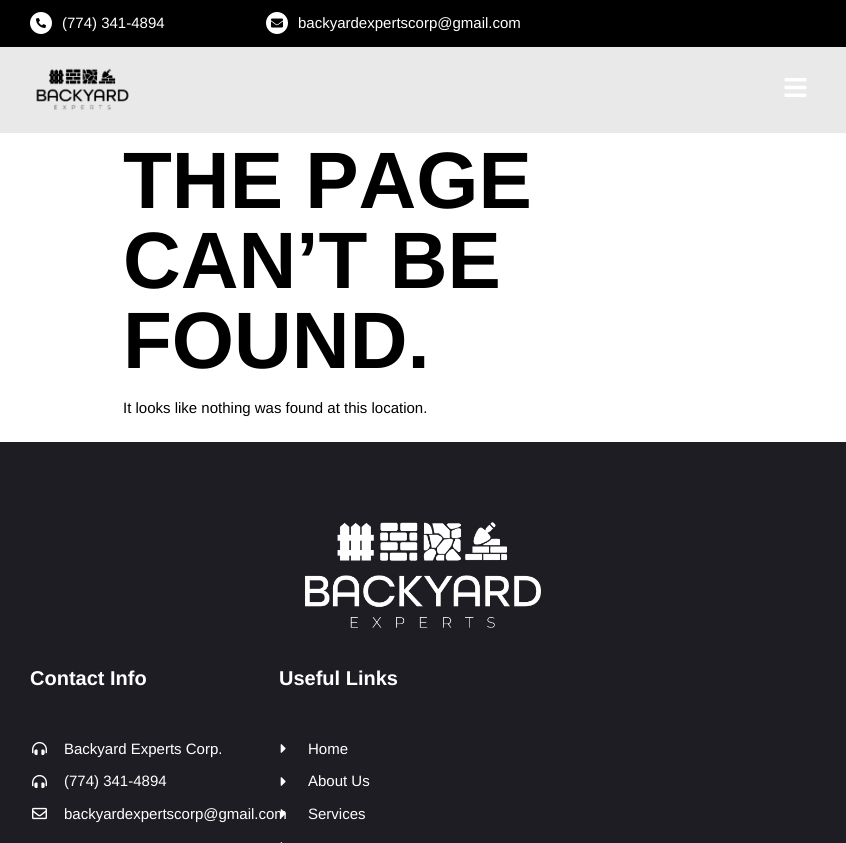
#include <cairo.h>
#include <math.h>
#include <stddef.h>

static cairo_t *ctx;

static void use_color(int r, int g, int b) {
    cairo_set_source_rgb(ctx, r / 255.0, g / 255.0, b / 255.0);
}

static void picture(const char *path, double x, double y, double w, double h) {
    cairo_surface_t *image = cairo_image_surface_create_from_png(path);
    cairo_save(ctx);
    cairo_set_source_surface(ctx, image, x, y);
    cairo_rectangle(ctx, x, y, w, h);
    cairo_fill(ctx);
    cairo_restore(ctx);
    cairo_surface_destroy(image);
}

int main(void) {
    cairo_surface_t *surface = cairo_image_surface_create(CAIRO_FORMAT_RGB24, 846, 843);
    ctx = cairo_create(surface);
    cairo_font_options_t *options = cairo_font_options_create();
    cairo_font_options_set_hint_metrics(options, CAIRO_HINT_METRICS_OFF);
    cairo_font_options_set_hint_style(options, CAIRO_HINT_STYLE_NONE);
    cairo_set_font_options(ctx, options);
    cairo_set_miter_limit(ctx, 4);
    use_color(255, 255, 255);
    cairo_paint(ctx);
    use_color(0, 0, 0);
    cairo_rectangle(ctx, 0, 0, 846, 47);
    cairo_fill(ctx);
    use_color(255, 255, 255);
    cairo_arc(ctx, 41, 23, 11, 0, 2 * M_PI);
    cairo_fill(ctx);
    picture("img1.png", 36, 18, 10, 10);
    cairo_select_font_face(ctx, "Liberation Sans", CAIRO_FONT_SLANT_NORMAL, CAIRO_FONT_WEIGHT_NORMAL);
    cairo_set_font_size(ctx, 15);
    cairo_move_to(ctx, 62, 28);
    cairo_show_text(ctx, "(774) 341-4894");
    cairo_new_path(ctx);
    cairo_arc(ctx, 277, 23, 11, 0, 2 * M_PI);
    cairo_fill(ctx);
    picture("img2.png", 271, 18, 12, 10);
    cairo_move_to(ctx, 298, 28);
    cairo_show_text(ctx, "backyardexpertscorp@gmail.com");
    use_color(233, 233, 233);
    cairo_rectangle(ctx, 0, 47, 846, 86);
    cairo_fill(ctx);
    picture("img3.png", 36, 68, 93, 42);
    picture("img4.png", 784, 78, 23, 19);
    cairo_select_font_face(ctx, "Liberation Sans", CAIRO_FONT_SLANT_NORMAL, CAIRO_FONT_WEIGHT_BOLD);
    cairo_set_font_size(ctx, 80);
    use_color(0, 0, 0);
    cairo_move_to(ctx, 123, 208);
    cairo_show_text(ctx, "THE PAGE");
    cairo_move_to(ctx, 123, 288);
    cairo_show_text(ctx, "CAN’T BE");
    cairo_move_to(ctx, 123, 368);
    cairo_show_text(ctx, "FOUND.");
    cairo_select_font_face(ctx, "Liberation Sans", CAIRO_FONT_SLANT_NORMAL, CAIRO_FONT_WEIGHT_NORMAL);
    cairo_set_font_size(ctx, 15);
    cairo_move_to(ctx, 123, 413);
    cairo_show_text(ctx, "It looks like nothing was found at this location.");
    use_color(30, 29, 35);
    cairo_rectangle(ctx, 0, 442, 846, 401);
    cairo_fill(ctx);
    picture("img5.png", 305, 522, 236, 106);
    cairo_select_font_face(ctx, "Liberation Sans", CAIRO_FONT_SLANT_NORMAL, CAIRO_FONT_WEIGHT_BOLD);
    cairo_set_font_size(ctx, 20);
    use_color(255, 255, 255);
    cairo_move_to(ctx, 30, 685);
    cairo_show_text(ctx, "Contact Info");
    picture("img6.png", 32, 741, 15, 15);
    cairo_select_font_face(ctx, "Liberation Sans", CAIRO_FONT_SLANT_NORMAL, CAIRO_FONT_WEIGHT_NORMAL);
    cairo_set_font_size(ctx, 15);
    cairo_move_to(ctx, 64, 754);
    cairo_show_text(ctx, "Backyard Experts Corp.");
    picture("img6.png", 32, 774, 15, 15);
    cairo_move_to(ctx, 64, 786);
    cairo_show_text(ctx, "(774) 341-4894");
    picture("img7.png", 32, 807, 15, 13);
    cairo_move_to(ctx, 64, 819);
    cairo_show_text(ctx, "backyardexpertscorp@gmail.com");
    cairo_select_font_face(ctx, "Liberation Sans", CAIRO_FONT_SLANT_NORMAL, CAIRO_FONT_WEIGHT_BOLD);
    cairo_set_font_size(ctx, 20);
    cairo_move_to(ctx, 279, 685);
    cairo_show_text(ctx, "Useful Links");
    picture("img8.png", 280, 744, 6, 9);
    cairo_select_font_face(ctx, "Liberation Sans", CAIRO_FONT_SLANT_NORMAL, CAIRO_FONT_WEIGHT_NORMAL);
    cairo_set_font_size(ctx, 15);
    cairo_move_to(ctx, 308, 754);
    cairo_show_text(ctx, "Home");
    picture("img8.png", 280, 777, 6, 9);
    cairo_move_to(ctx, 308, 786);
    cairo_show_text(ctx, "About Us");
    picture("img9.png", 280, 809, 6, 9);
    cairo_move_to(ctx, 308, 819);
    cairo_show_text(ctx, "Services");
    picture("img10.png", 280, 842, 3, 1);
    cairo_surface_write_to_png(surface, "result.png");
    cairo_font_options_destroy(options);
    cairo_destroy(ctx);
    cairo_surface_destroy(surface);
    return 0;
}
